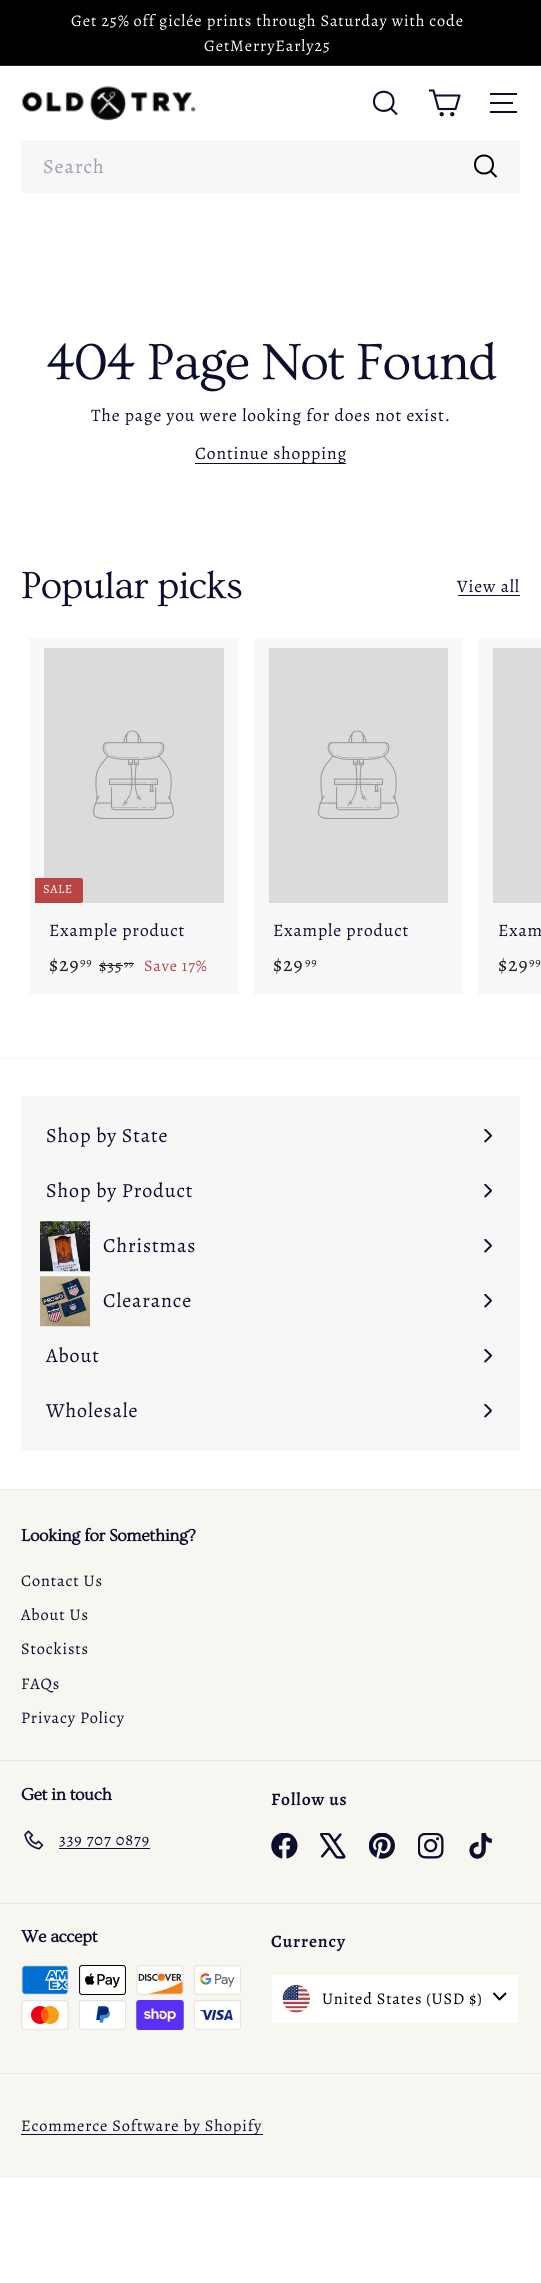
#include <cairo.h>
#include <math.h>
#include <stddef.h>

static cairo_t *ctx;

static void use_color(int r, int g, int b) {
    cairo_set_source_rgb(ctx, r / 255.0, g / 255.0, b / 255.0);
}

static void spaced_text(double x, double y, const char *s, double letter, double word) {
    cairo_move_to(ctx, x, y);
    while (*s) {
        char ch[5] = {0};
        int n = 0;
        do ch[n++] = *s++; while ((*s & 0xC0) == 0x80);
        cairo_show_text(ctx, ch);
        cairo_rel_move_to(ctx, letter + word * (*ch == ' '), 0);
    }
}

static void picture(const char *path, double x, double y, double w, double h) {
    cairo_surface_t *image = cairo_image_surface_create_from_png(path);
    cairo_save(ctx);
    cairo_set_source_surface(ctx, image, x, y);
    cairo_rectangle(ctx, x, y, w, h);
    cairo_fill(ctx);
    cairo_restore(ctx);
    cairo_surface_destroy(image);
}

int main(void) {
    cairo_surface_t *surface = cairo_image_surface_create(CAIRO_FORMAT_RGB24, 541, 2283);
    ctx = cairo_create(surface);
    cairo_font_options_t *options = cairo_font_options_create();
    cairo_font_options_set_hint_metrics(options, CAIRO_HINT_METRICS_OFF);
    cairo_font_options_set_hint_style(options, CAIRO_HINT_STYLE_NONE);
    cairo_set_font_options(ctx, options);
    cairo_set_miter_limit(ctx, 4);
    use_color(255, 255, 255);
    cairo_paint(ctx);
    use_color(247, 247, 247);
    cairo_rectangle(ctx, 21, 1096, 499, 355);
    cairo_fill(ctx);
    use_color(248, 248, 249);
    cairo_rectangle(ctx, 478, 638, 63, 357);
    cairo_fill(ctx);
    cairo_rectangle(ctx, 254, 638, 209, 357);
    cairo_fill(ctx);
    cairo_rectangle(ctx, 29, 638, 210, 357);
    cairo_fill(ctx);
    use_color(0, 0, 0);
    cairo_rectangle(ctx, 0, 0, 541, 65);
    cairo_fill(ctx);
    cairo_select_font_face(ctx, "Alegreya", CAIRO_FONT_SLANT_NORMAL, CAIRO_FONT_WEIGHT_NORMAL);
    cairo_set_font_size(ctx, 16.25);
    use_color(255, 255, 255);
    spaced_text(71, 26, "Get 25% off giclée prints through Saturday with code", 0.88, 0);
    spaced_text(204, 51, "GetMerryEarly25", 0.88, 0);
    use_color(38, 38, 38);
    cairo_rectangle(ctx, 0, 65, 541, 1);
    cairo_fill(ctx);
    picture("img1.png", 21, 86, 175, 35);
    cairo_new_path(ctx);
    cairo_move_to(ctx, 393.5, 101.5);
    cairo_curve_to(ctx, 393.5, 114, 374, 114, 374, 101.5);
    cairo_curve_to(ctx, 374, 88.5, 393.5, 88.5, 393.5, 101.5);
    cairo_move_to(ctx, 397, 114.5);
    cairo_line_to(ctx, 391, 108.5);
    use_color(13, 13, 46);
    cairo_set_line_width(ctx, 2.1);
    cairo_set_line_join(ctx, CAIRO_LINE_JOIN_ROUND);
    cairo_stroke(ctx);
    cairo_new_path(ctx);
    cairo_move_to(ctx, 435, 95.5);
    cairo_line_to(ctx, 459.5, 95.5);
    cairo_line_to(ctx, 455.5, 109);
    cairo_line_to(ctx, 438.5, 109);
    cairo_line_to(ctx, 433.5, 90.5);
    cairo_line_to(ctx, 429, 90.5);
    cairo_stroke(ctx);
    cairo_arc(ctx, 441.7, 114.2, 1.1, 0, 2 * M_PI);
    cairo_set_line_join(ctx, CAIRO_LINE_JOIN_MITER);
    cairo_stroke(ctx);
    cairo_arc(ctx, 452.3, 114.2, 1.1, 0, 2 * M_PI);
    cairo_stroke(ctx);
    cairo_rectangle(ctx, 490, 93, 27, 2);
    cairo_fill(ctx);
    cairo_rectangle(ctx, 490, 102, 23, 2);
    cairo_fill(ctx);
    cairo_rectangle(ctx, 490, 111, 27, 2);
    cairo_fill(ctx);
    use_color(247, 247, 247);
    cairo_rectangle(ctx, 21.5, 140.5, 498, 52);
    cairo_fill_preserve(ctx);
    use_color(248, 246, 241);
    cairo_set_line_width(ctx, 1);
    cairo_stroke(ctx);
    cairo_set_font_size(ctx, 20);
    use_color(156, 163, 175);
    spaced_text(43, 173, "Search", 1, 0);
    cairo_new_path(ctx);
    cairo_move_to(ctx, 493, 164.5);
    cairo_curve_to(ctx, 493, 176.5, 475, 176.5, 475, 164.5);
    cairo_curve_to(ctx, 475, 152.5, 493, 152.5, 493, 164.5);
    cairo_move_to(ctx, 496.5, 177);
    cairo_line_to(ctx, 490.5, 171);
    use_color(0, 0, 0);
    cairo_set_line_width(ctx, 2);
    cairo_set_line_join(ctx, CAIRO_LINE_JOIN_ROUND);
    cairo_stroke(ctx);
    cairo_select_font_face(ctx, "Ovo", CAIRO_FONT_SLANT_NORMAL, CAIRO_FONT_WEIGHT_NORMAL);
    cairo_set_font_size(ctx, 53.1);
    use_color(13, 13, 46);
    spaced_text(46, 379, "404 Page Not Found", -1.3, 0);
    cairo_select_font_face(ctx, "Alegreya", CAIRO_FONT_SLANT_NORMAL, CAIRO_FONT_WEIGHT_NORMAL);
    cairo_set_font_size(ctx, 17.5);
    spaced_text(91, 421, "The page you were looking for does not exist.", 0.88, 0);
    cairo_rectangle(ctx, 195, 463, 151, 1);
    cairo_fill(ctx);
    spaced_text(195, 459, "Continue shopping", 0.88, 0);
    cairo_select_font_face(ctx, "Ovo", CAIRO_FONT_SLANT_NORMAL, CAIRO_FONT_WEIGHT_NORMAL);
    cairo_set_font_size(ctx, 39.5);
    spaced_text(21, 598, "Popular picks", -1, 0);
    cairo_select_font_face(ctx, "Alegreya", CAIRO_FONT_SLANT_NORMAL, CAIRO_FONT_WEIGHT_NORMAL);
    cairo_set_font_size(ctx, 17.5);
    spaced_text(457, 592, "View all", 0.88, 0);
    cairo_rectangle(ctx, 458, 595, 62, 1);
    cairo_fill(ctx);
    use_color(219, 219, 220);
    cairo_rectangle(ctx, 44, 648, 180, 255);
    cairo_fill(ctx);
    picture("img2.png", 93, 730, 81, 89);
    use_color(186, 68, 68);
    cairo_new_path(ctx);
    cairo_move_to(ctx, 35, 878);
    cairo_line_to(ctx, 80.5, 878);
    cairo_curve_to(ctx, 82, 878, 83, 879, 83, 880.5);
    cairo_line_to(ctx, 83, 900.5);
    cairo_curve_to(ctx, 83, 902, 82, 903, 80.5, 903);
    cairo_line_to(ctx, 35, 903);
    cairo_close_path(ctx);
    cairo_fill(ctx);
    cairo_set_font_size(ctx, 12.5);
    use_color(255, 255, 255);
    spaced_text(43, 893, "SALE", 0.5, 0);
    cairo_set_font_size(ctx, 17.5);
    use_color(13, 13, 46);
    spaced_text(49, 936, "Example product", 0.88, 0);
    cairo_set_font_size(ctx, 20);
    use_color(28, 29, 30);
    spaced_text(49, 971, "$29", 0.88, 0);
    cairo_set_font_size(ctx, 12);
    spaced_text(80, 966, "99", 0.88, 0);
    cairo_set_font_size(ctx, 16);
    spaced_text(99, 971, "$35", 0.88, 0);
    cairo_set_font_size(ctx, 9);
    spaced_text(124, 967, "99", 0.88, 0);
    cairo_rectangle(ctx, 99, 965, 24, 1);
    cairo_fill(ctx);
    cairo_rectangle(ctx, 124, 963, 10, 1);
    cairo_fill(ctx);
    cairo_set_font_size(ctx, 16);
    use_color(181, 66, 67);
    spaced_text(144, 971, "Save 17%", 0.88, 0);
    use_color(219, 219, 220);
    cairo_rectangle(ctx, 269, 648, 179, 255);
    cairo_fill(ctx);
    picture("img2.png", 318, 730, 81, 89);
    cairo_set_font_size(ctx, 17.5);
    use_color(13, 13, 46);
    spaced_text(273, 936, "Example product", 0.88, 0);
    cairo_set_font_size(ctx, 20);
    use_color(28, 29, 30);
    spaced_text(273, 971, "$29", 0.88, 0);
    cairo_set_font_size(ctx, 12);
    spaced_text(305, 966, "99", 0.88, 0);
    use_color(219, 219, 220);
    cairo_rectangle(ctx, 493, 648, 48, 255);
    cairo_fill(ctx);
    cairo_set_font_size(ctx, 17.5);
    use_color(13, 13, 46);
    spaced_text(498, 936, "Exam", 0.88, 0);
    cairo_set_font_size(ctx, 20);
    use_color(28, 29, 30);
    spaced_text(498, 971, "$29", 0.88, 0);
    cairo_set_font_size(ctx, 12);
    spaced_text(529, 966, "99", 0.88, 0);
    use_color(248, 246, 241);
    cairo_rectangle(ctx, 0, 1058, 541, 1);
    cairo_fill(ctx);
    cairo_set_font_size(ctx, 20);
    use_color(13, 13, 46);
    spaced_text(46, 1142, "Shop by State", 0.88, 0);
    picture("img3.png", 484, 1129, 8, 14);
    spaced_text(46, 1197, "Shop by Product", 0.88, 0);
    picture("img3.png", 484, 1184, 8, 14);
    picture("img4.png", 40, 1221, 50, 51);
    spaced_text(103, 1252, "Christmas", 0.88, 0);
    picture("img3.png", 484, 1239, 8, 14);
    picture("img5.png", 40, 1276, 50, 51);
    spaced_text(103, 1307, "Clearance", 0.88, 0);
    picture("img3.png", 484, 1294, 8, 14);
    spaced_text(46, 1362, "About", 0.88, 0);
    picture("img3.png", 484, 1349, 8, 14);
    spaced_text(46, 1417, "Wholesale", 0.88, 0);
    picture("img3.png", 484, 1404, 8, 14);
    use_color(248, 246, 241);
    cairo_rectangle(ctx, 0, 1490, 541, 688);
    cairo_fill(ctx);
    use_color(232, 232, 225);
    cairo_rectangle(ctx, 0, 1489, 541, 1);
    cairo_fill(ctx);
    cairo_select_font_face(ctx, "Ovo", CAIRO_FONT_SLANT_NORMAL, CAIRO_FONT_WEIGHT_BOLD);
    cairo_set_font_size(ctx, 17.5);
    use_color(13, 13, 46);
    spaced_text(21, 1541, "Looking for Something?", -0.4, 0);
    cairo_select_font_face(ctx, "Alegreya", CAIRO_FONT_SLANT_NORMAL, CAIRO_FONT_WEIGHT_NORMAL);
    cairo_set_font_size(ctx, 16.25);
    spaced_text(21, 1586, "Contact Us", 0.88, 0);
    spaced_text(21, 1620, "About Us", 0.88, 0);
    spaced_text(21, 1654, "Stockists", 0.88, 0);
    spaced_text(21, 1689, "FAQs", 0.88, 0);
    spaced_text(21, 1723, "Privacy Policy", 0.88, 0);
    use_color(232, 232, 225);
    cairo_rectangle(ctx, 0, 1760, 541, 1);
    cairo_fill(ctx);
    cairo_select_font_face(ctx, "Ovo", CAIRO_FONT_SLANT_NORMAL, CAIRO_FONT_WEIGHT_BOLD);
    cairo_set_font_size(ctx, 17.5);
    use_color(13, 13, 46);
    spaced_text(21, 1800, "Get in touch", -0.4, 0);
    picture("img6.png", 24, 1830, 20, 20);
    cairo_select_font_face(ctx, "Alegreya", CAIRO_FONT_SLANT_NORMAL, CAIRO_FONT_WEIGHT_NORMAL);
    cairo_set_font_size(ctx, 16.25);
    spaced_text(59, 1845, "339 707 0879", 0.88, 0);
    cairo_rectangle(ctx, 59, 1848, 91, 1);
    cairo_fill(ctx);
    cairo_select_font_face(ctx, "Alegreya SemiBold", CAIRO_FONT_SLANT_NORMAL, CAIRO_FONT_WEIGHT_NORMAL);
    cairo_set_font_size(ctx, 17.5);
    spaced_text(271, 1805, "Follow us", 0.88, 0);
    picture("img7.png", 271, 1833, 27, 26);
    picture("img8.png", 320, 1833, 26, 26);
    picture("img9.png", 369, 1833, 26, 26);
    picture("img10.png", 418, 1833, 26, 26);
    picture("img11.png", 469, 1833, 23, 26);
    use_color(232, 232, 225);
    cairo_rectangle(ctx, 0, 1903, 541, 1);
    cairo_fill(ctx);
    cairo_select_font_face(ctx, "Ovo", CAIRO_FONT_SLANT_NORMAL, CAIRO_FONT_WEIGHT_BOLD);
    use_color(13, 13, 46);
    spaced_text(21, 1942, "We accept", -0.4, 0);
    picture("img12.png", 21, 1965, 48, 30);
    picture("img13.png", 79, 1965, 47, 30);
    picture("img14.png", 136, 1965, 48, 30);
    picture("img15.png", 194, 1965, 47, 30);
    picture("img16.png", 21, 2000, 48, 30);
    picture("img17.png", 79, 2000, 47, 30);
    picture("img18.png", 136, 2000, 48, 30);
    picture("img19.png", 194, 2000, 47, 30);
    cairo_select_font_face(ctx, "Alegreya SemiBold", CAIRO_FONT_SLANT_NORMAL, CAIRO_FONT_WEIGHT_NORMAL);
    spaced_text(271, 1947, "Currency", 0.88, 0);
    use_color(255, 255, 255);
    cairo_rectangle(ctx, 272, 1975, 246, 48);
    cairo_fill(ctx);
    picture("img20.png", 282, 1985, 28, 28);
    cairo_select_font_face(ctx, "Alegreya", CAIRO_FONT_SLANT_NORMAL, CAIRO_FONT_WEIGHT_NORMAL);
    cairo_set_font_size(ctx, 16.25);
    use_color(0, 0, 0);
    spaced_text(322, 2004, "United States (USD $)", 0.8, 0);
    cairo_new_path(ctx);
    cairo_move_to(ctx, 493.5, 1993);
    cairo_line_to(ctx, 499.5, 1999.5);
    cairo_line_to(ctx, 506, 1993);
    cairo_stroke(ctx);
    use_color(232, 232, 225);
    cairo_rectangle(ctx, 0, 2073, 541, 1);
    cairo_fill(ctx);
    use_color(13, 13, 46);
    cairo_rectangle(ctx, 21, 2134, 242, 1);
    cairo_fill(ctx);
    spaced_text(21, 2131, "Ecommerce Software by Shopify", 0.88, 0);
    cairo_surface_write_to_png(surface, "result.png");
    cairo_font_options_destroy(options);
    cairo_destroy(ctx);
    cairo_surface_destroy(surface);
    return 0;
}
